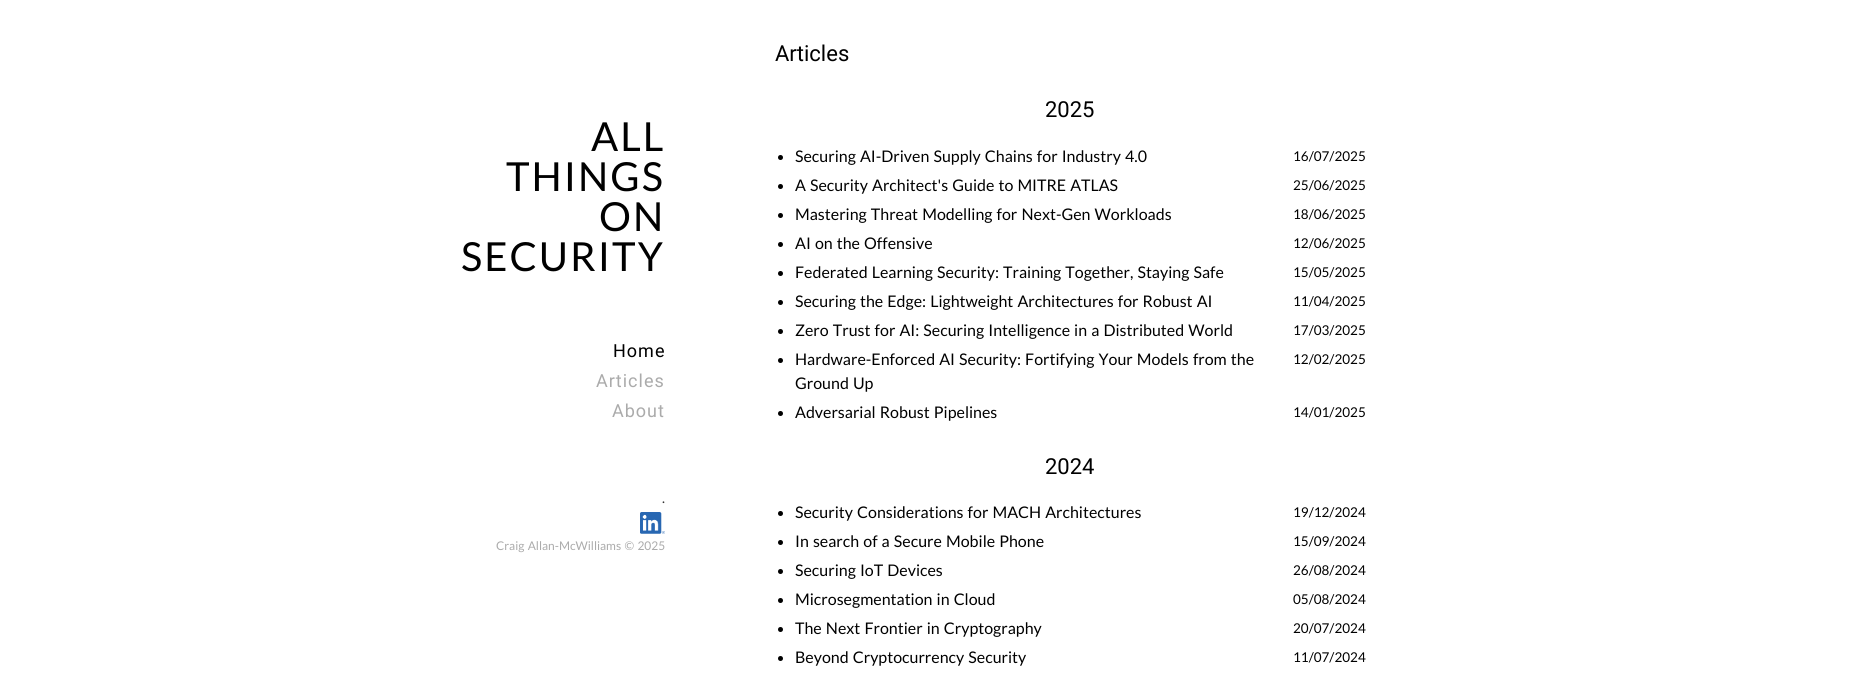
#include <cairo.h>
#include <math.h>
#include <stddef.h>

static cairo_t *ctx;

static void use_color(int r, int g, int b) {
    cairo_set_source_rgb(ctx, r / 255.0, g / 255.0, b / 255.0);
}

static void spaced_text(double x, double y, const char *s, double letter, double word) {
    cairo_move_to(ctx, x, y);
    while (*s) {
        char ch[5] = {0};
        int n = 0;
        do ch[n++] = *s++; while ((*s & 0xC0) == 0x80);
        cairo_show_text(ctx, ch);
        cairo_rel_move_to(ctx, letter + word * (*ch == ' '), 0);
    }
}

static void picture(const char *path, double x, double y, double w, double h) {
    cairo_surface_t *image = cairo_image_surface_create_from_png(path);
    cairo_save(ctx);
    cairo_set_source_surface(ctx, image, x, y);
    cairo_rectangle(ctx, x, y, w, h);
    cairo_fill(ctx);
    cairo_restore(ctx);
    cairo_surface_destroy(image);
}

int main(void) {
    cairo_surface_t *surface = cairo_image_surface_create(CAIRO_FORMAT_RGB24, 1860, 684);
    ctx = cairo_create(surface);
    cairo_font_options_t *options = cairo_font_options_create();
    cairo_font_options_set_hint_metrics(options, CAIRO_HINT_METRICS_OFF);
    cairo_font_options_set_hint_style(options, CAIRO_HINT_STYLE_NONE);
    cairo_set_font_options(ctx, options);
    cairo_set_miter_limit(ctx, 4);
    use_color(255, 255, 255);
    cairo_paint(ctx);
    cairo_select_font_face(ctx, "Lato", CAIRO_FONT_SLANT_NORMAL, CAIRO_FONT_WEIGHT_NORMAL);
    cairo_set_font_size(ctx, 40);
    use_color(0, 0, 0);
    spaced_text(591, 151, "ALL", 2, 0);
    spaced_text(506, 191, "THINGS", 2, 0);
    spaced_text(599, 231, "ON", 2, 0);
    spaced_text(461, 271, "SECURITY", 2, 0);
    cairo_select_font_face(ctx, "Roboto", CAIRO_FONT_SLANT_NORMAL, CAIRO_FONT_WEIGHT_NORMAL);
    cairo_set_font_size(ctx, 18);
    spaced_text(613, 357, "Home", 1, 0);
    use_color(171, 171, 171);
    spaced_text(596, 387, "Articles", 1, 0);
    spaced_text(612, 417, "About", 1, 0);
    cairo_select_font_face(ctx, "Lato", CAIRO_FONT_SLANT_NORMAL, CAIRO_FONT_WEIGHT_NORMAL);
    cairo_set_font_size(ctx, 14);
    use_color(51, 51, 51);
    cairo_move_to(ctx, 662, 503);
    cairo_show_text(ctx, ".");
    picture("img1.png", 640, 512, 25, 22);
    cairo_set_font_size(ctx, 12);
    use_color(171, 171, 171);
    spaced_text(496, 550, "Craig Allan-McWilliams © 2025", 0, 1);
    cairo_select_font_face(ctx, "Roboto", CAIRO_FONT_SLANT_NORMAL, CAIRO_FONT_WEIGHT_NORMAL);
    cairo_set_font_size(ctx, 22);
    use_color(0, 0, 0);
    cairo_move_to(ctx, 775, 61);
    cairo_show_text(ctx, "Articles");
    cairo_move_to(ctx, 1045, 117);
    cairo_show_text(ctx, "2025");
    cairo_new_path(ctx);
    cairo_arc(ctx, 780.5, 157.5, 2.5, 0, 2 * M_PI);
    cairo_fill(ctx);
    cairo_select_font_face(ctx, "Lato", CAIRO_FONT_SLANT_NORMAL, CAIRO_FONT_WEIGHT_NORMAL);
    cairo_set_font_size(ctx, 16);
    spaced_text(795, 162, "Securing AI-Driven Supply Chains for Industry 4.0", 0, 1);
    cairo_set_font_size(ctx, 13.5);
    cairo_move_to(ctx, 1293, 161);
    cairo_show_text(ctx, "16/07/2025");
    cairo_new_path(ctx);
    cairo_arc(ctx, 780.5, 186.5, 2.5, 0, 2 * M_PI);
    cairo_fill(ctx);
    cairo_set_font_size(ctx, 16);
    spaced_text(795, 191, "A Security Architect's Guide to MITRE ATLAS", 0, 1);
    cairo_set_font_size(ctx, 13.5);
    cairo_move_to(ctx, 1293, 190);
    cairo_show_text(ctx, "25/06/2025");
    cairo_new_path(ctx);
    cairo_arc(ctx, 780.5, 215.5, 2.5, 0, 2 * M_PI);
    cairo_fill(ctx);
    cairo_set_font_size(ctx, 16);
    spaced_text(795, 220, "Mastering Threat Modelling for Next-Gen Workloads", 0, 1);
    cairo_set_font_size(ctx, 13.5);
    cairo_move_to(ctx, 1293, 219);
    cairo_show_text(ctx, "18/06/2025");
    cairo_new_path(ctx);
    cairo_arc(ctx, 780.5, 244.5, 2.5, 0, 2 * M_PI);
    cairo_fill(ctx);
    cairo_set_font_size(ctx, 16);
    spaced_text(795, 249, "AI on the Offensive", 0, 1);
    cairo_set_font_size(ctx, 13.5);
    cairo_move_to(ctx, 1293, 248);
    cairo_show_text(ctx, "12/06/2025");
    cairo_new_path(ctx);
    cairo_arc(ctx, 780.5, 273.5, 2.5, 0, 2 * M_PI);
    cairo_fill(ctx);
    cairo_set_font_size(ctx, 16);
    spaced_text(795, 278, "Federated Learning Security: Training Together, Staying Safe", 0, 1);
    cairo_set_font_size(ctx, 13.5);
    cairo_move_to(ctx, 1293, 277);
    cairo_show_text(ctx, "15/05/2025");
    cairo_new_path(ctx);
    cairo_arc(ctx, 780.5, 302.5, 2.5, 0, 2 * M_PI);
    cairo_fill(ctx);
    cairo_set_font_size(ctx, 16);
    spaced_text(795, 307, "Securing the Edge: Lightweight Architectures for Robust AI", 0, 1);
    cairo_set_font_size(ctx, 13.5);
    cairo_move_to(ctx, 1293, 306);
    cairo_show_text(ctx, "11/04/2025");
    cairo_new_path(ctx);
    cairo_arc(ctx, 780.5, 331.5, 2.5, 0, 2 * M_PI);
    cairo_fill(ctx);
    cairo_set_font_size(ctx, 16);
    spaced_text(795, 336, "Zero Trust for AI: Securing Intelligence in a Distributed World", 0, 1);
    cairo_set_font_size(ctx, 13.5);
    cairo_move_to(ctx, 1293, 335);
    cairo_show_text(ctx, "17/03/2025");
    cairo_new_path(ctx);
    cairo_arc(ctx, 780.5, 360.5, 2.5, 0, 2 * M_PI);
    cairo_fill(ctx);
    cairo_set_font_size(ctx, 16);
    spaced_text(795, 365, "Hardware-Enforced AI Security: Fortifying Your Models from the", 0, 1);
    spaced_text(795, 389, "Ground Up", 0, 1);
    cairo_set_font_size(ctx, 13.5);
    cairo_move_to(ctx, 1293, 364);
    cairo_show_text(ctx, "12/02/2025");
    cairo_new_path(ctx);
    cairo_arc(ctx, 780.5, 413.5, 2.5, 0, 2 * M_PI);
    cairo_fill(ctx);
    cairo_set_font_size(ctx, 16);
    spaced_text(795, 418, "Adversarial Robust Pipelines", 0, 1);
    cairo_set_font_size(ctx, 13.5);
    cairo_move_to(ctx, 1293, 417);
    cairo_show_text(ctx, "14/01/2025");
    cairo_select_font_face(ctx, "Roboto", CAIRO_FONT_SLANT_NORMAL, CAIRO_FONT_WEIGHT_NORMAL);
    cairo_set_font_size(ctx, 22);
    cairo_move_to(ctx, 1045, 474);
    cairo_show_text(ctx, "2024");
    cairo_new_path(ctx);
    cairo_arc(ctx, 780.5, 513.5, 2.5, 0, 2 * M_PI);
    cairo_fill(ctx);
    cairo_select_font_face(ctx, "Lato", CAIRO_FONT_SLANT_NORMAL, CAIRO_FONT_WEIGHT_NORMAL);
    cairo_set_font_size(ctx, 16);
    spaced_text(795, 518, "Security Considerations for MACH Architectures", 0, 1);
    cairo_set_font_size(ctx, 13.5);
    cairo_move_to(ctx, 1293, 517);
    cairo_show_text(ctx, "19/12/2024");
    cairo_new_path(ctx);
    cairo_arc(ctx, 780.5, 542.5, 2.5, 0, 2 * M_PI);
    cairo_fill(ctx);
    cairo_set_font_size(ctx, 16);
    spaced_text(795, 547, "In search of a Secure Mobile Phone", 0, 1);
    cairo_set_font_size(ctx, 13.5);
    cairo_move_to(ctx, 1293, 546);
    cairo_show_text(ctx, "15/09/2024");
    cairo_new_path(ctx);
    cairo_arc(ctx, 780.5, 571.5, 2.5, 0, 2 * M_PI);
    cairo_fill(ctx);
    cairo_set_font_size(ctx, 16);
    spaced_text(795, 576, "Securing IoT Devices", 0, 1);
    cairo_set_font_size(ctx, 13.5);
    cairo_move_to(ctx, 1293, 575);
    cairo_show_text(ctx, "26/08/2024");
    cairo_new_path(ctx);
    cairo_arc(ctx, 780.5, 600.5, 2.5, 0, 2 * M_PI);
    cairo_fill(ctx);
    cairo_set_font_size(ctx, 16);
    spaced_text(795, 605, "Microsegmentation in Cloud", 0, 1);
    cairo_set_font_size(ctx, 13.5);
    cairo_move_to(ctx, 1293, 604);
    cairo_show_text(ctx, "05/08/2024");
    cairo_new_path(ctx);
    cairo_arc(ctx, 780.5, 629.5, 2.5, 0, 2 * M_PI);
    cairo_fill(ctx);
    cairo_set_font_size(ctx, 16);
    spaced_text(795, 634, "The Next Frontier in Cryptography", 0, 1);
    cairo_set_font_size(ctx, 13.5);
    cairo_move_to(ctx, 1293, 633);
    cairo_show_text(ctx, "20/07/2024");
    cairo_new_path(ctx);
    cairo_arc(ctx, 780.5, 658.5, 2.5, 0, 2 * M_PI);
    cairo_fill(ctx);
    cairo_set_font_size(ctx, 16);
    spaced_text(795, 663, "Beyond Cryptocurrency Security", 0, 1);
    cairo_set_font_size(ctx, 13.5);
    cairo_move_to(ctx, 1293, 662);
    cairo_show_text(ctx, "11/07/2024");
    cairo_surface_write_to_png(surface, "result.png");
    cairo_font_options_destroy(options);
    cairo_destroy(ctx);
    cairo_surface_destroy(surface);
    return 0;
}
